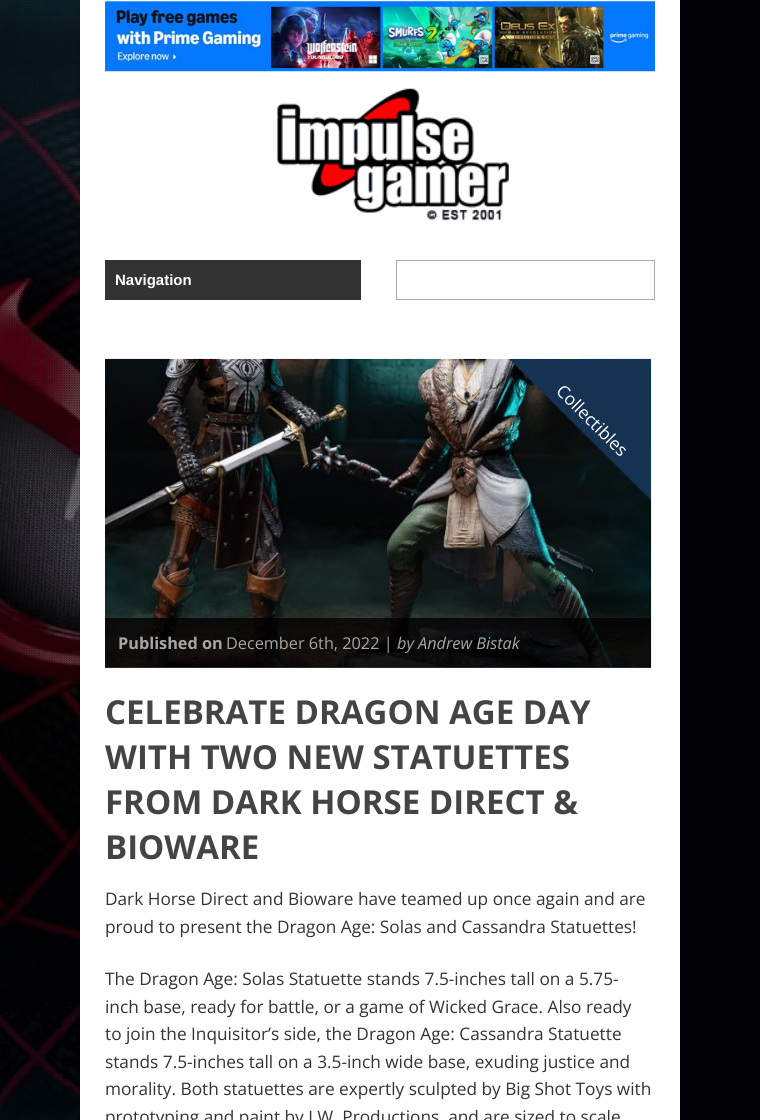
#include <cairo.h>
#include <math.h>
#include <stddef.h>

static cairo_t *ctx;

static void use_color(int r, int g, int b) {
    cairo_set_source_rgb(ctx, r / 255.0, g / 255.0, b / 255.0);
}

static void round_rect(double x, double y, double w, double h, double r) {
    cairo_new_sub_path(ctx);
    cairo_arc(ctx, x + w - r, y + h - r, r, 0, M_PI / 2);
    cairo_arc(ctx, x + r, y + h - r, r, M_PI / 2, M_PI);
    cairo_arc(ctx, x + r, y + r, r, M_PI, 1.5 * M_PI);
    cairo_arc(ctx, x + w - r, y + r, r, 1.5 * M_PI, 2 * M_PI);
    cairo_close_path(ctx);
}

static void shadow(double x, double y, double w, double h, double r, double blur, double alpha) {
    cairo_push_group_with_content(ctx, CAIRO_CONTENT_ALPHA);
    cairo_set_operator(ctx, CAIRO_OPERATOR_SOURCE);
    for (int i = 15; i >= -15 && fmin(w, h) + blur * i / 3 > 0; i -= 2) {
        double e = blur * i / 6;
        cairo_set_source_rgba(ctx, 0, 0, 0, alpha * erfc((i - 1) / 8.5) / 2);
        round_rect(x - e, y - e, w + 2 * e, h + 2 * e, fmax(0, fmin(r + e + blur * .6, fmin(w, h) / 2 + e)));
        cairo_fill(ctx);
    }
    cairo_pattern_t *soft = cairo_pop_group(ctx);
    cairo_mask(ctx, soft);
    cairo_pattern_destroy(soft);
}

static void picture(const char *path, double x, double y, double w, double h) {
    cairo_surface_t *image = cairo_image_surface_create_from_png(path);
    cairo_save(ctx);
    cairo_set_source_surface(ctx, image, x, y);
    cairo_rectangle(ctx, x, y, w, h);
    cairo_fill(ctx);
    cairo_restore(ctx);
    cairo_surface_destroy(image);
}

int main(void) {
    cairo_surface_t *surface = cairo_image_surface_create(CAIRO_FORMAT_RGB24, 760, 1120);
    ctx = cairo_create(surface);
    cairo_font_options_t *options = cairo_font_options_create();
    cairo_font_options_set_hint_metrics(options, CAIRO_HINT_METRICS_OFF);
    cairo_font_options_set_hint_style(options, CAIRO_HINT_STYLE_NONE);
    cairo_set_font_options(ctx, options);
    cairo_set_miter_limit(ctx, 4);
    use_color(0, 0, 0);
    cairo_paint(ctx);
    picture("img1.png", 0, 0, 760, 1120);
    picture("img2.png", 0, 0, 80, 1120);
    shadow(80, 0, 600, 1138, 0, 6, 0.1);
    use_color(255, 255, 255);
    cairo_rectangle(ctx, 80, 0, 600, 1120);
    cairo_fill(ctx);
    picture("img3.png", 105, 1, 550, 71);
    picture("img4.png", 277, 88, 232, 133);
    use_color(51, 51, 51);
    cairo_rectangle(ctx, 105, 260, 256, 40);
    cairo_fill(ctx);
    cairo_select_font_face(ctx, "Liberation Sans", CAIRO_FONT_SLANT_NORMAL, CAIRO_FONT_WEIGHT_BOLD);
    cairo_set_font_size(ctx, 15);
    use_color(255, 255, 255);
    cairo_move_to(ctx, 115, 285);
    cairo_show_text(ctx, "Navigation");
    cairo_rectangle(ctx, 396.5, 260.5, 258, 39);
    use_color(170, 170, 170);
    cairo_set_line_width(ctx, 1);
    cairo_stroke(ctx);
    picture("img5.png", 105, 358, 547, 310);
    cairo_save(ctx);
    cairo_rectangle(ctx, 105, 359, 546, 309);
    cairo_clip(ctx);
    use_color(22, 50, 82);
    cairo_new_path(ctx);
    cairo_move_to(ctx, 575, 261);
    cairo_line_to(ctx, 752, 438);
    cairo_line_to(ctx, 670, 519);
    cairo_line_to(ctx, 493, 343);
    cairo_close_path(ctx);
    cairo_fill(ctx);
    cairo_restore(ctx);
    cairo_select_font_face(ctx, "Open Sans", CAIRO_FONT_SLANT_NORMAL, CAIRO_FONT_WEIGHT_NORMAL);
    cairo_set_font_size(ctx, 17.5);
    use_color(255, 255, 255);
    cairo_save(ctx);
    cairo_translate(ctx, 555, 392);
    cairo_rotate(ctx, 45 * M_PI / 180);
    cairo_move_to(ctx, 0, 0);
    cairo_show_text(ctx, "Collectibles");
    cairo_restore(ctx);
    cairo_set_source_rgba(ctx, 0, 0, 0, 0.8);
    cairo_rectangle(ctx, 105, 618, 546, 50);
    cairo_fill(ctx);
    cairo_select_font_face(ctx, "Open Sans", CAIRO_FONT_SLANT_NORMAL, CAIRO_FONT_WEIGHT_BOLD);
    cairo_set_font_size(ctx, 16.25);
    use_color(168, 167, 166);
    cairo_move_to(ctx, 118, 649);
    cairo_show_text(ctx, "Published on");
    cairo_select_font_face(ctx, "Open Sans", CAIRO_FONT_SLANT_NORMAL, CAIRO_FONT_WEIGHT_NORMAL);
    cairo_move_to(ctx, 226, 649);
    cairo_show_text(ctx, "December 6th, 2022 |");
    cairo_select_font_face(ctx, "Open Sans", CAIRO_FONT_SLANT_ITALIC, CAIRO_FONT_WEIGHT_NORMAL);
    cairo_move_to(ctx, 397, 649);
    cairo_show_text(ctx, "by Andrew Bistak");
    cairo_select_font_face(ctx, "Open Sans", CAIRO_FONT_SLANT_NORMAL, CAIRO_FONT_WEIGHT_BOLD);
    cairo_set_font_size(ctx, 33);
    use_color(68, 68, 68);
    cairo_move_to(ctx, 105, 724);
    cairo_show_text(ctx, "CELEBRATE DRAGON AGE DAY");
    cairo_move_to(ctx, 105, 769);
    cairo_show_text(ctx, "WITH TWO NEW STATUETTES");
    cairo_move_to(ctx, 105, 814);
    cairo_show_text(ctx, "FROM DARK HORSE DIRECT &");
    cairo_move_to(ctx, 105, 859);
    cairo_show_text(ctx, "BIOWARE");
    cairo_select_font_face(ctx, "Open Sans", CAIRO_FONT_SLANT_NORMAL, CAIRO_FONT_WEIGHT_NORMAL);
    cairo_set_font_size(ctx, 17.25);
    use_color(51, 51, 51);
    cairo_move_to(ctx, 105, 905);
    cairo_show_text(ctx, "Dark Horse Direct and Bioware have teamed up once again and are");
    cairo_move_to(ctx, 105, 933);
    cairo_show_text(ctx, "proud to present the Dragon Age: Solas and Cassandra Statuettes!");
    cairo_move_to(ctx, 105, 985);
    cairo_show_text(ctx, "The Dragon Age: Solas Statuette stands 7.5-inches tall on a 5.75-");
    cairo_move_to(ctx, 105, 1013);
    cairo_show_text(ctx, "inch base, ready for battle, or a game of Wicked Grace. Also ready");
    cairo_move_to(ctx, 105, 1040);
    cairo_show_text(ctx, "to join the Inquisitor’s side, the Dragon Age: Cassandra Statuette");
    cairo_move_to(ctx, 105, 1068);
    cairo_show_text(ctx, "stands 7.5-inches tall on a 3.5-inch wide base, exuding justice and");
    cairo_move_to(ctx, 105, 1095);
    cairo_show_text(ctx, "morality. Both statuettes are expertly sculpted by Big Shot Toys with");
    cairo_move_to(ctx, 105, 1123);
    cairo_show_text(ctx, "prototyping and paint by J.W. Productions, and are sized to scale");
    cairo_surface_write_to_png(surface, "result.png");
    cairo_font_options_destroy(options);
    cairo_destroy(ctx);
    cairo_surface_destroy(surface);
    return 0;
}
